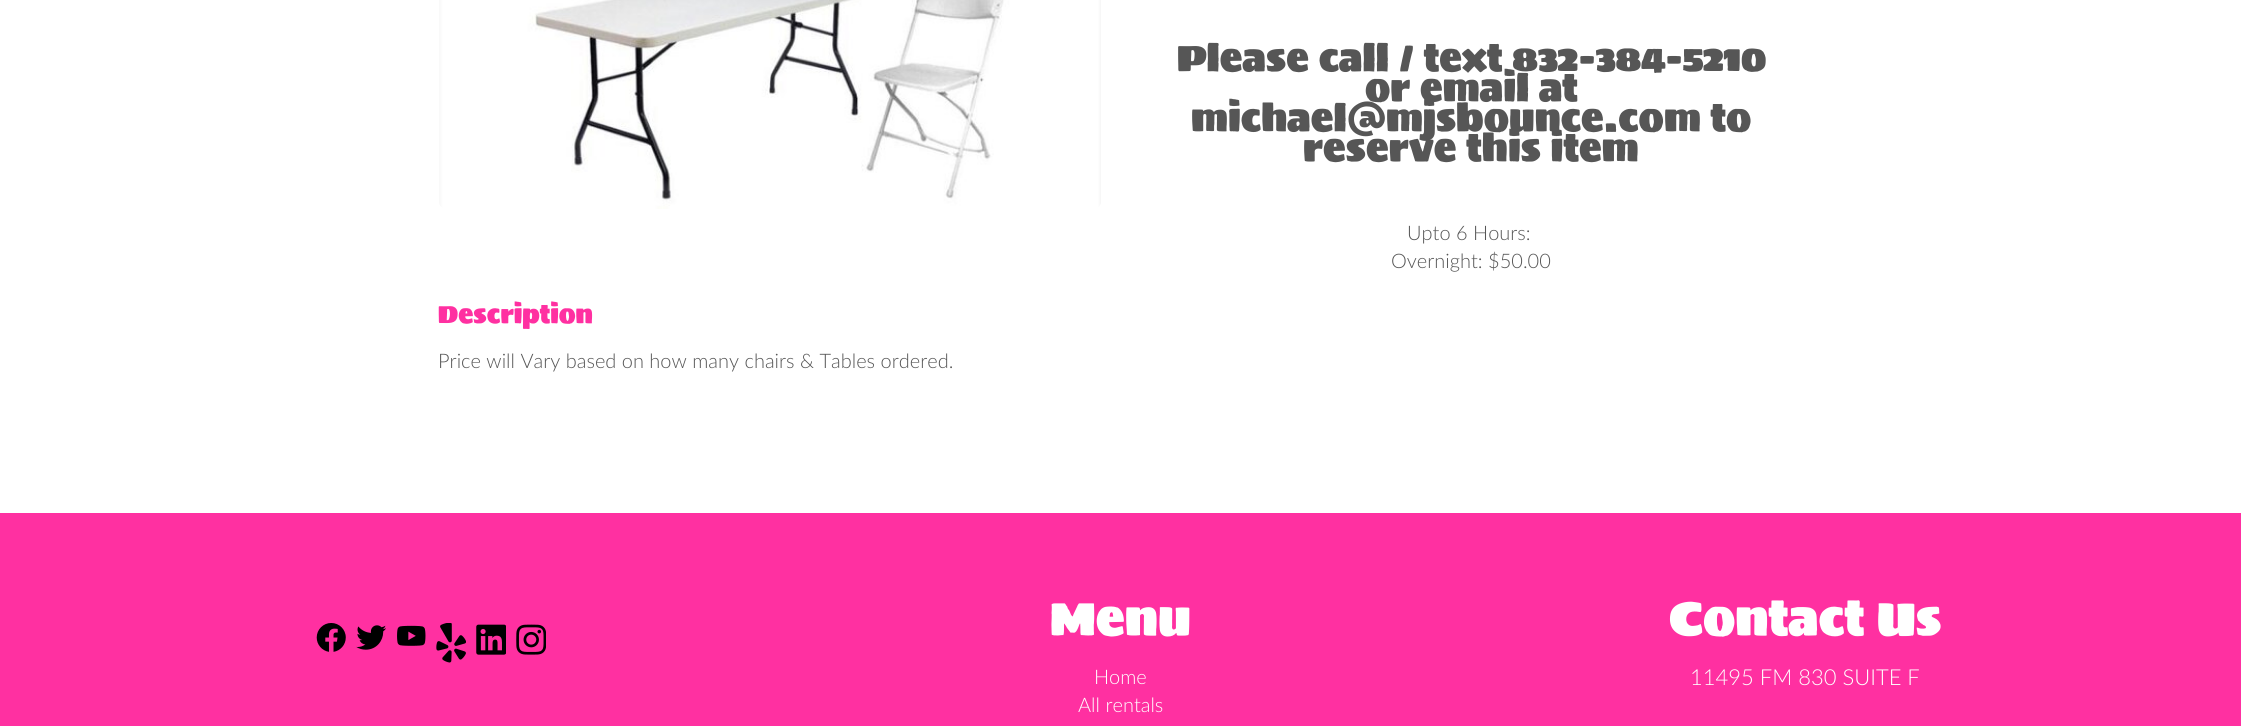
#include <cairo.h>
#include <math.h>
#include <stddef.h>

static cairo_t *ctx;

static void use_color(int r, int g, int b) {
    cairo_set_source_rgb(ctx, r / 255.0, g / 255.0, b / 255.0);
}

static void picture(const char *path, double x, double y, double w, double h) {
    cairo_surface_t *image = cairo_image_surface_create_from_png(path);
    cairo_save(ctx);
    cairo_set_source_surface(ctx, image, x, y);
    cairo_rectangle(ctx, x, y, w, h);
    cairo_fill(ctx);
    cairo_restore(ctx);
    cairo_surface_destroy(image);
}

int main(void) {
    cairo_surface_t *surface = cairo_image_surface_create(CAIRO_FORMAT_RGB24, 2241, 726);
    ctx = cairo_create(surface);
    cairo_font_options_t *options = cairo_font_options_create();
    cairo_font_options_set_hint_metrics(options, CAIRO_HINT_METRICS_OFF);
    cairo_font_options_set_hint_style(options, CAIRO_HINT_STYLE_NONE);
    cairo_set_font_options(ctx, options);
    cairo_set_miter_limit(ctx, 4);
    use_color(255, 255, 255);
    cairo_paint(ctx);
    picture("img1.png", 439, 0, 662, 209);
    cairo_select_font_face(ctx, "Sigmar", CAIRO_FONT_SLANT_NORMAL, CAIRO_FONT_WEIGHT_NORMAL);
    cairo_set_font_size(ctx, 37.5);
    use_color(86, 86, 86);
    cairo_move_to(ctx, 1177, 71);
    cairo_show_text(ctx, "Please call / text 832-384-5210");
    cairo_move_to(ctx, 1365, 101);
    cairo_show_text(ctx, "or email at");
    cairo_move_to(ctx, 1191, 131);
    cairo_show_text(ctx, "michael@mjsbounce.com to");
    cairo_move_to(ctx, 1303, 161);
    cairo_show_text(ctx, "reserve this item");
    cairo_select_font_face(ctx, "Lato Light", CAIRO_FONT_SLANT_NORMAL, CAIRO_FONT_WEIGHT_NORMAL);
    cairo_set_font_size(ctx, 20);
    cairo_move_to(ctx, 1407, 240);
    cairo_show_text(ctx, "Upto 6 Hours:");
    cairo_move_to(ctx, 1391, 268);
    cairo_show_text(ctx, "Overnight: $50.00");
    cairo_select_font_face(ctx, "Sigmar", CAIRO_FONT_SLANT_NORMAL, CAIRO_FONT_WEIGHT_NORMAL);
    cairo_set_font_size(ctx, 25);
    use_color(255, 48, 161);
    cairo_move_to(ctx, 438, 323);
    cairo_show_text(ctx, "Description");
    cairo_select_font_face(ctx, "Lato Light", CAIRO_FONT_SLANT_NORMAL, CAIRO_FONT_WEIGHT_NORMAL);
    cairo_set_font_size(ctx, 20);
    use_color(86, 86, 86);
    cairo_move_to(ctx, 438, 368);
    cairo_show_text(ctx, "Price will Vary based on how many chairs & Tables ordered.");
    use_color(255, 48, 161);
    cairo_rectangle(ctx, 0, 513, 2241, 213);
    cairo_fill(ctx);
    picture("img2.png", 316, 623, 30, 29);
    picture("img3.png", 356, 625, 30, 25);
    picture("img4.png", 397, 625, 29, 21);
    picture("img5.png", 436, 623, 30, 40);
    picture("img6.png", 476, 624, 30, 31);
    picture("img7.png", 516, 624, 30, 31);
    cairo_select_font_face(ctx, "Sigmar", CAIRO_FONT_SLANT_NORMAL, CAIRO_FONT_WEIGHT_NORMAL);
    cairo_set_font_size(ctx, 48);
    use_color(255, 255, 255);
    cairo_move_to(ctx, 1050, 635);
    cairo_show_text(ctx, "Menu");
    cairo_select_font_face(ctx, "Lato Light", CAIRO_FONT_SLANT_NORMAL, CAIRO_FONT_WEIGHT_NORMAL);
    cairo_set_font_size(ctx, 20);
    cairo_move_to(ctx, 1094, 684);
    cairo_show_text(ctx, "Home");
    cairo_move_to(ctx, 1078, 712);
    cairo_show_text(ctx, "All rentals");
    cairo_select_font_face(ctx, "Sigmar", CAIRO_FONT_SLANT_NORMAL, CAIRO_FONT_WEIGHT_NORMAL);
    cairo_set_font_size(ctx, 48);
    cairo_move_to(ctx, 1669, 635);
    cairo_show_text(ctx, "Contact Us");
    cairo_select_font_face(ctx, "Lato Light", CAIRO_FONT_SLANT_NORMAL, CAIRO_FONT_WEIGHT_NORMAL);
    cairo_set_font_size(ctx, 22);
    cairo_move_to(ctx, 1690, 685);
    cairo_show_text(ctx, "11495 FM 830 SUITE F");
    cairo_surface_write_to_png(surface, "result.png");
    cairo_font_options_destroy(options);
    cairo_destroy(ctx);
    cairo_surface_destroy(surface);
    return 0;
}
